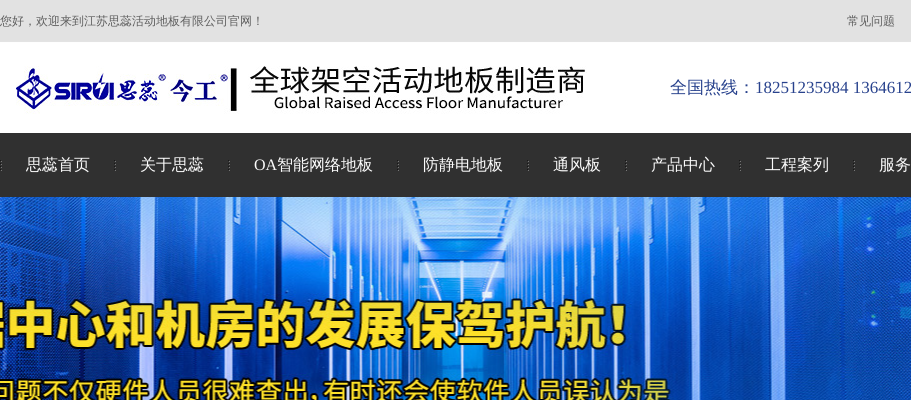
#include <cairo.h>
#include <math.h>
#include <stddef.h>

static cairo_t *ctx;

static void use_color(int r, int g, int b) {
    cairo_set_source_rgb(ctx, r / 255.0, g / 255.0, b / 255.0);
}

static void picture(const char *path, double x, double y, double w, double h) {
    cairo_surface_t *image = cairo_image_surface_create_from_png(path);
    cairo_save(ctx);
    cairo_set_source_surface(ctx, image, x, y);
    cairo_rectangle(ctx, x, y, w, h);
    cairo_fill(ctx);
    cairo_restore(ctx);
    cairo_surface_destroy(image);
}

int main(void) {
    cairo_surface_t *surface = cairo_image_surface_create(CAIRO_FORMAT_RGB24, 911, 400);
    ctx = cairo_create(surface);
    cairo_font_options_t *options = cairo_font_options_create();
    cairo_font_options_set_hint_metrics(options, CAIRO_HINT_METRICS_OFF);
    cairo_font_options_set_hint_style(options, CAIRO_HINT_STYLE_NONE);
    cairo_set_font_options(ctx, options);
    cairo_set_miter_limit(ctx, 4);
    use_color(255, 255, 255);
    cairo_paint(ctx);
    picture("img1.png", 0, 0, 911, 197);
    cairo_select_font_face(ctx, "WenQuanYi Zen Hei Medium", CAIRO_FONT_SLANT_NORMAL, CAIRO_FONT_WEIGHT_NORMAL);
    cairo_set_font_size(ctx, 12);
    use_color(95, 95, 95);
    cairo_move_to(ctx, 0, 25);
    cairo_show_text(ctx, "您好，欢迎来到江苏思蕊活动地板有限公司官网！");
    cairo_move_to(ctx, 847, 25);
    cairo_show_text(ctx, "常见问题");
    picture("img2.png", 16, 66, 571, 48);
    cairo_set_font_size(ctx, 17);
    use_color(40, 66, 141);
    cairo_move_to(ctx, 670, 93);
    cairo_show_text(ctx, "全国热线：");
    cairo_select_font_face(ctx, "Liberation Serif", CAIRO_FONT_SLANT_NORMAL, CAIRO_FONT_WEIGHT_NORMAL);
    cairo_move_to(ctx, 755, 93);
    cairo_show_text(ctx, "18251235984 1364612");
    picture("img3.png", 0, 160, 2, 11);
    cairo_select_font_face(ctx, "WenQuanYi Zen Hei Medium", CAIRO_FONT_SLANT_NORMAL, CAIRO_FONT_WEIGHT_NORMAL);
    cairo_set_font_size(ctx, 16);
    use_color(251, 251, 251);
    cairo_move_to(ctx, 26, 170);
    cairo_show_text(ctx, "思蕊首页");
    picture("img3.png", 114, 160, 2, 11);
    cairo_move_to(ctx, 140, 170);
    cairo_show_text(ctx, "关于思蕊");
    picture("img3.png", 228, 160, 2, 11);
    cairo_select_font_face(ctx, "Liberation Serif", CAIRO_FONT_SLANT_NORMAL, CAIRO_FONT_WEIGHT_NORMAL);
    cairo_move_to(ctx, 254, 170);
    cairo_show_text(ctx, "OA");
    cairo_select_font_face(ctx, "WenQuanYi Zen Hei Medium", CAIRO_FONT_SLANT_NORMAL, CAIRO_FONT_WEIGHT_NORMAL);
    cairo_move_to(ctx, 277, 170);
    cairo_show_text(ctx, "智能网络地板");
    picture("img3.png", 397, 160, 2, 11);
    cairo_move_to(ctx, 423, 170);
    cairo_show_text(ctx, "防静电地板");
    picture("img3.png", 527, 160, 2, 11);
    cairo_move_to(ctx, 553, 170);
    cairo_show_text(ctx, "通风板");
    picture("img3.png", 625, 160, 2, 11);
    cairo_move_to(ctx, 651, 170);
    cairo_show_text(ctx, "产品中心");
    picture("img3.png", 739, 160, 2, 11);
    cairo_move_to(ctx, 765, 170);
    cairo_show_text(ctx, "工程案列");
    picture("img3.png", 853, 160, 2, 11);
    cairo_move_to(ctx, 879, 170);
    cairo_show_text(ctx, "服务");
    picture("img4.png", 0, 197, 911, 203);
    cairo_surface_write_to_png(surface, "result.png");
    cairo_font_options_destroy(options);
    cairo_destroy(ctx);
    cairo_surface_destroy(surface);
    return 0;
}
